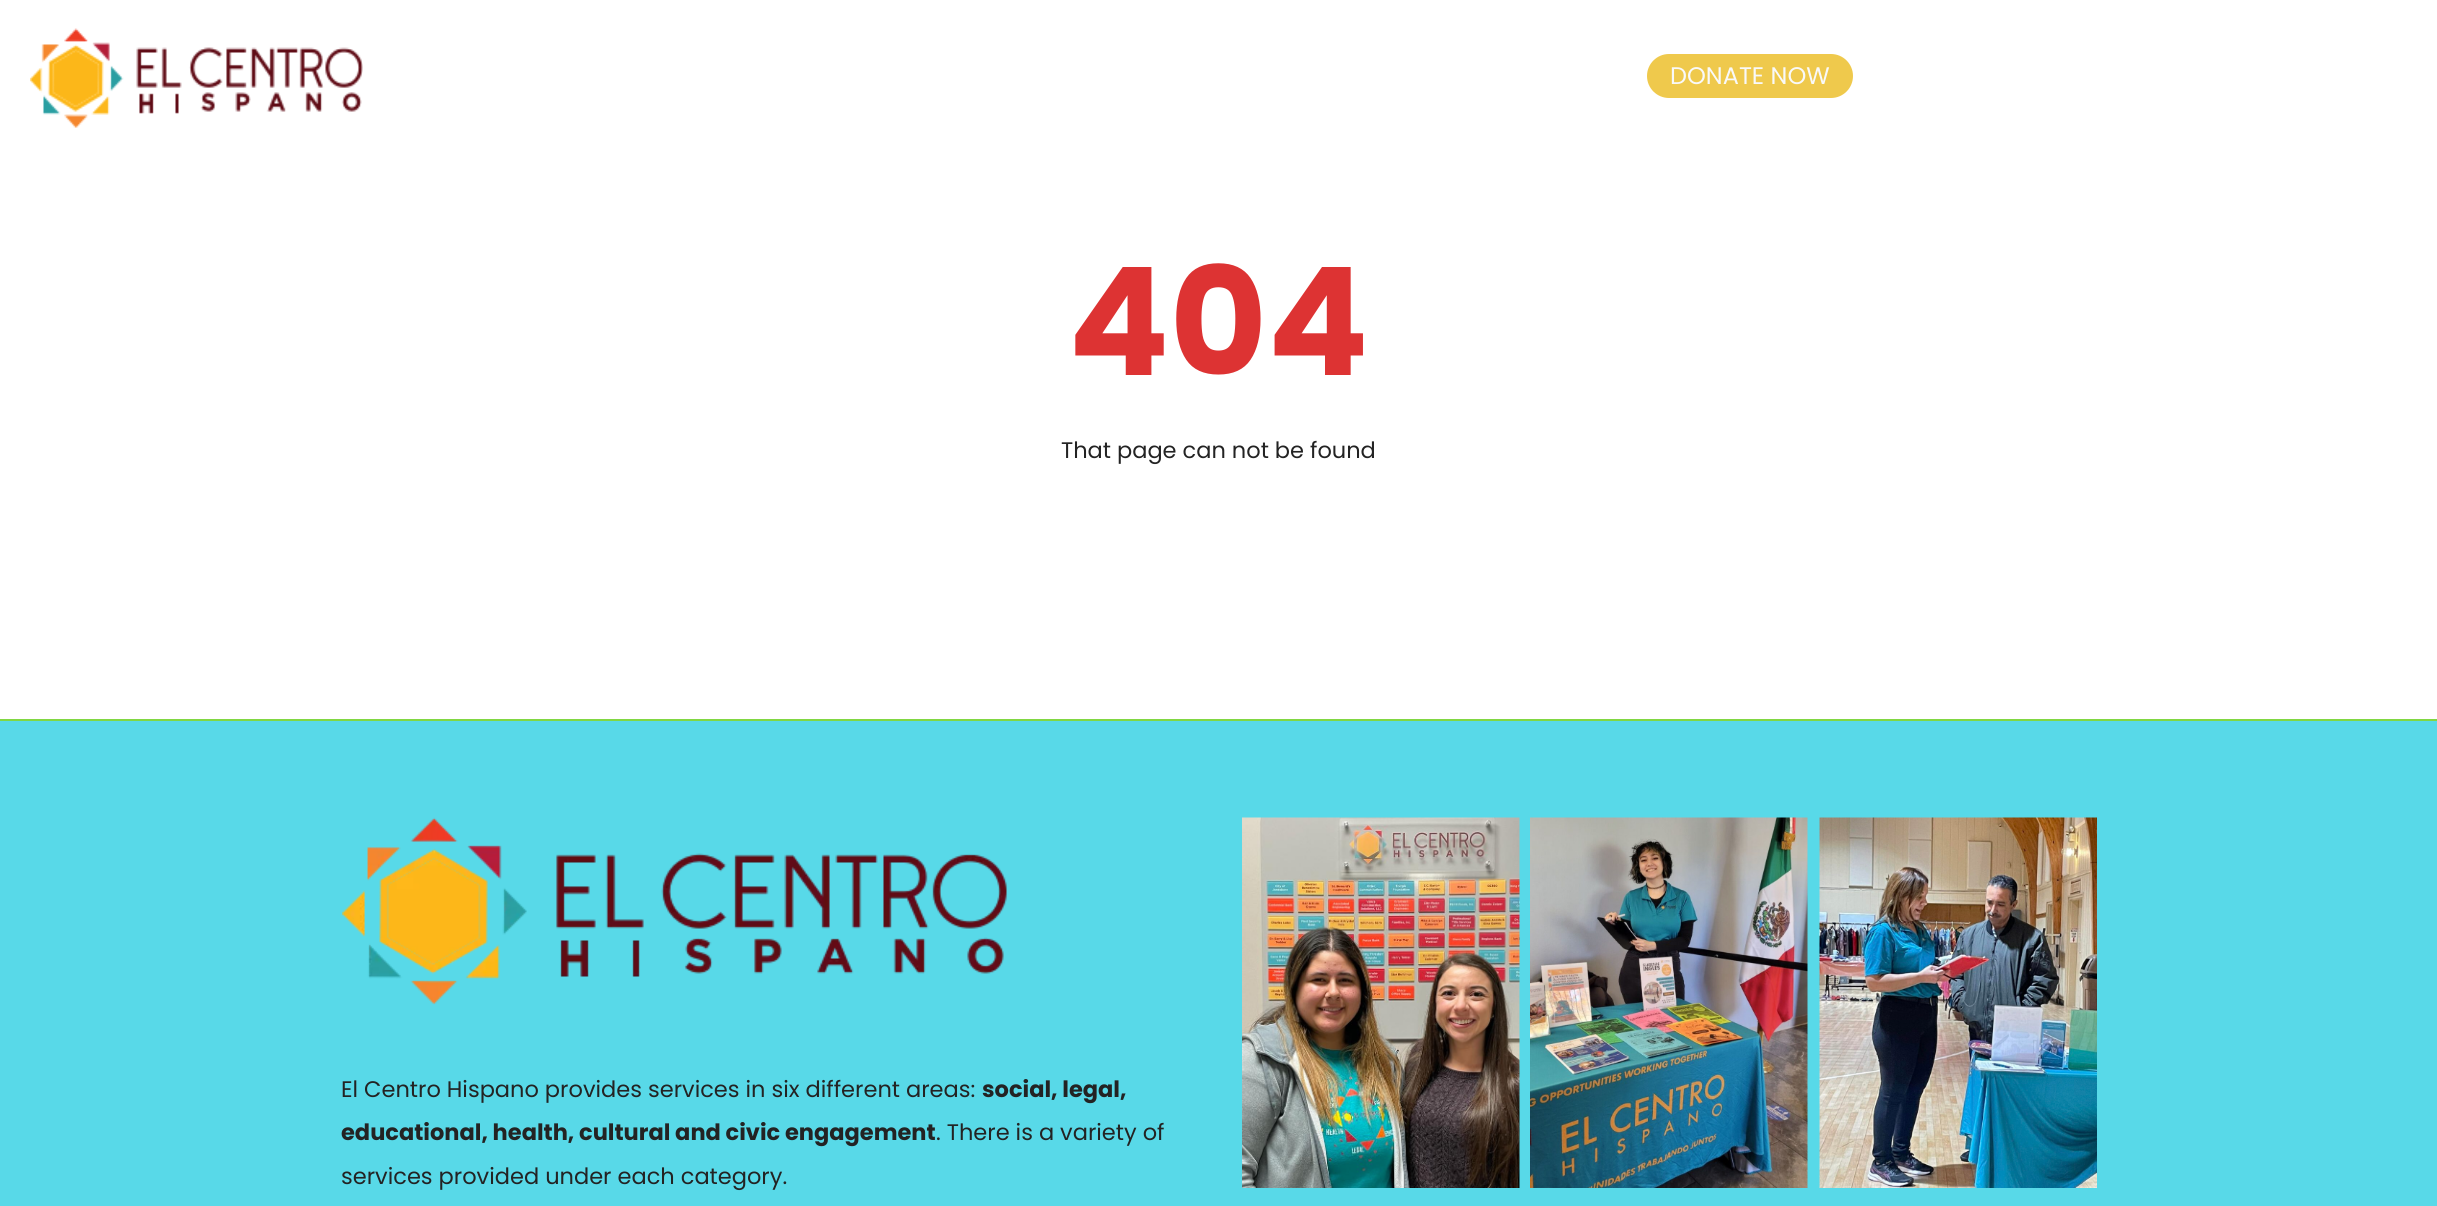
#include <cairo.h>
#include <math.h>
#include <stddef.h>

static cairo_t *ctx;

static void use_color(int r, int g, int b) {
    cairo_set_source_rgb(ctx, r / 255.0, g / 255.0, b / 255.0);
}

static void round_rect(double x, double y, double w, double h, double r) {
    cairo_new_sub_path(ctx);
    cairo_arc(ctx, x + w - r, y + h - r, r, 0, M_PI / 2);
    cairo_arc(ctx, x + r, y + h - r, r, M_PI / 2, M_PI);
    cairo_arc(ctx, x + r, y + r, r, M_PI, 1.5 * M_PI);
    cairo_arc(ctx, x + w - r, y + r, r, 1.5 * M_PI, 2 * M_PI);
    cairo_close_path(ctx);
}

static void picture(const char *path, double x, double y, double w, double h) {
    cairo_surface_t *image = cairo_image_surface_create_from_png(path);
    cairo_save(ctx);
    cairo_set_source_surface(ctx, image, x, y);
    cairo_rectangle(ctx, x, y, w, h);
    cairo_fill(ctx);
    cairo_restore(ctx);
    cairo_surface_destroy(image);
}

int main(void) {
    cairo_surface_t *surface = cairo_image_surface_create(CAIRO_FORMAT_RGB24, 2437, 1206);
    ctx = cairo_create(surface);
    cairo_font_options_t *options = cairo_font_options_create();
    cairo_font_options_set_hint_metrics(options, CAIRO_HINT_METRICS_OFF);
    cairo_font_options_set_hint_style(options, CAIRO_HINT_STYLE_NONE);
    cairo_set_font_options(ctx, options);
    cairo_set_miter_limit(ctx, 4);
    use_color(255, 255, 255);
    cairo_paint(ctx);
    picture("img1.png", 30, 28, 333, 100);
    use_color(239, 201, 76);
    round_rect(1647, 54, 206, 44, 22);
    cairo_fill(ctx);
    cairo_select_font_face(ctx, "Poppins", CAIRO_FONT_SLANT_NORMAL, CAIRO_FONT_WEIGHT_NORMAL);
    cairo_set_font_size(ctx, 24);
    use_color(249, 249, 249);
    cairo_move_to(ctx, 1670, 84);
    cairo_show_text(ctx, "DONATE NOW");
    cairo_select_font_face(ctx, "Poppins", CAIRO_FONT_SLANT_NORMAL, CAIRO_FONT_WEIGHT_BOLD);
    cairo_set_font_size(ctx, 150);
    use_color(221, 51, 51);
    cairo_move_to(ctx, 1068, 375);
    cairo_show_text(ctx, "404");
    cairo_select_font_face(ctx, "Poppins", CAIRO_FONT_SLANT_NORMAL, CAIRO_FONT_WEIGHT_NORMAL);
    cairo_set_font_size(ctx, 22.5);
    use_color(35, 35, 35);
    cairo_move_to(ctx, 1061, 458);
    cairo_show_text(ctx, "That page can not be found");
    use_color(88, 217, 232);
    cairo_rectangle(ctx, 0, 721, 2437, 485);
    cairo_fill(ctx);
    use_color(129, 215, 66);
    cairo_rectangle(ctx, 0, 719, 2437, 2);
    cairo_fill(ctx);
    picture("img2.png", 342, 817, 665, 188);
    use_color(35, 35, 35);
    cairo_move_to(ctx, 341, 1097);
    cairo_show_text(ctx, "El Centro Hispano provides services in six different areas:");
    cairo_select_font_face(ctx, "Poppins", CAIRO_FONT_SLANT_NORMAL, CAIRO_FONT_WEIGHT_BOLD);
    cairo_move_to(ctx, 982, 1097);
    cairo_show_text(ctx, "social, legal,");
    cairo_move_to(ctx, 341, 1140);
    cairo_show_text(ctx, "educational, health, cultural and civic engagement");
    cairo_select_font_face(ctx, "Poppins", CAIRO_FONT_SLANT_NORMAL, CAIRO_FONT_WEIGHT_NORMAL);
    cairo_move_to(ctx, 936, 1140);
    cairo_show_text(ctx, ". There is a variety of");
    cairo_move_to(ctx, 341, 1184);
    cairo_show_text(ctx, "services provided under each category.");
    picture("img3.png", 1242, 817, 278, 371);
    picture("img4.png", 1530, 817, 278, 371);
    picture("img5.png", 1819, 817, 278, 371);
    cairo_surface_write_to_png(surface, "result.png");
    cairo_font_options_destroy(options);
    cairo_destroy(ctx);
    cairo_surface_destroy(surface);
    return 0;
}
